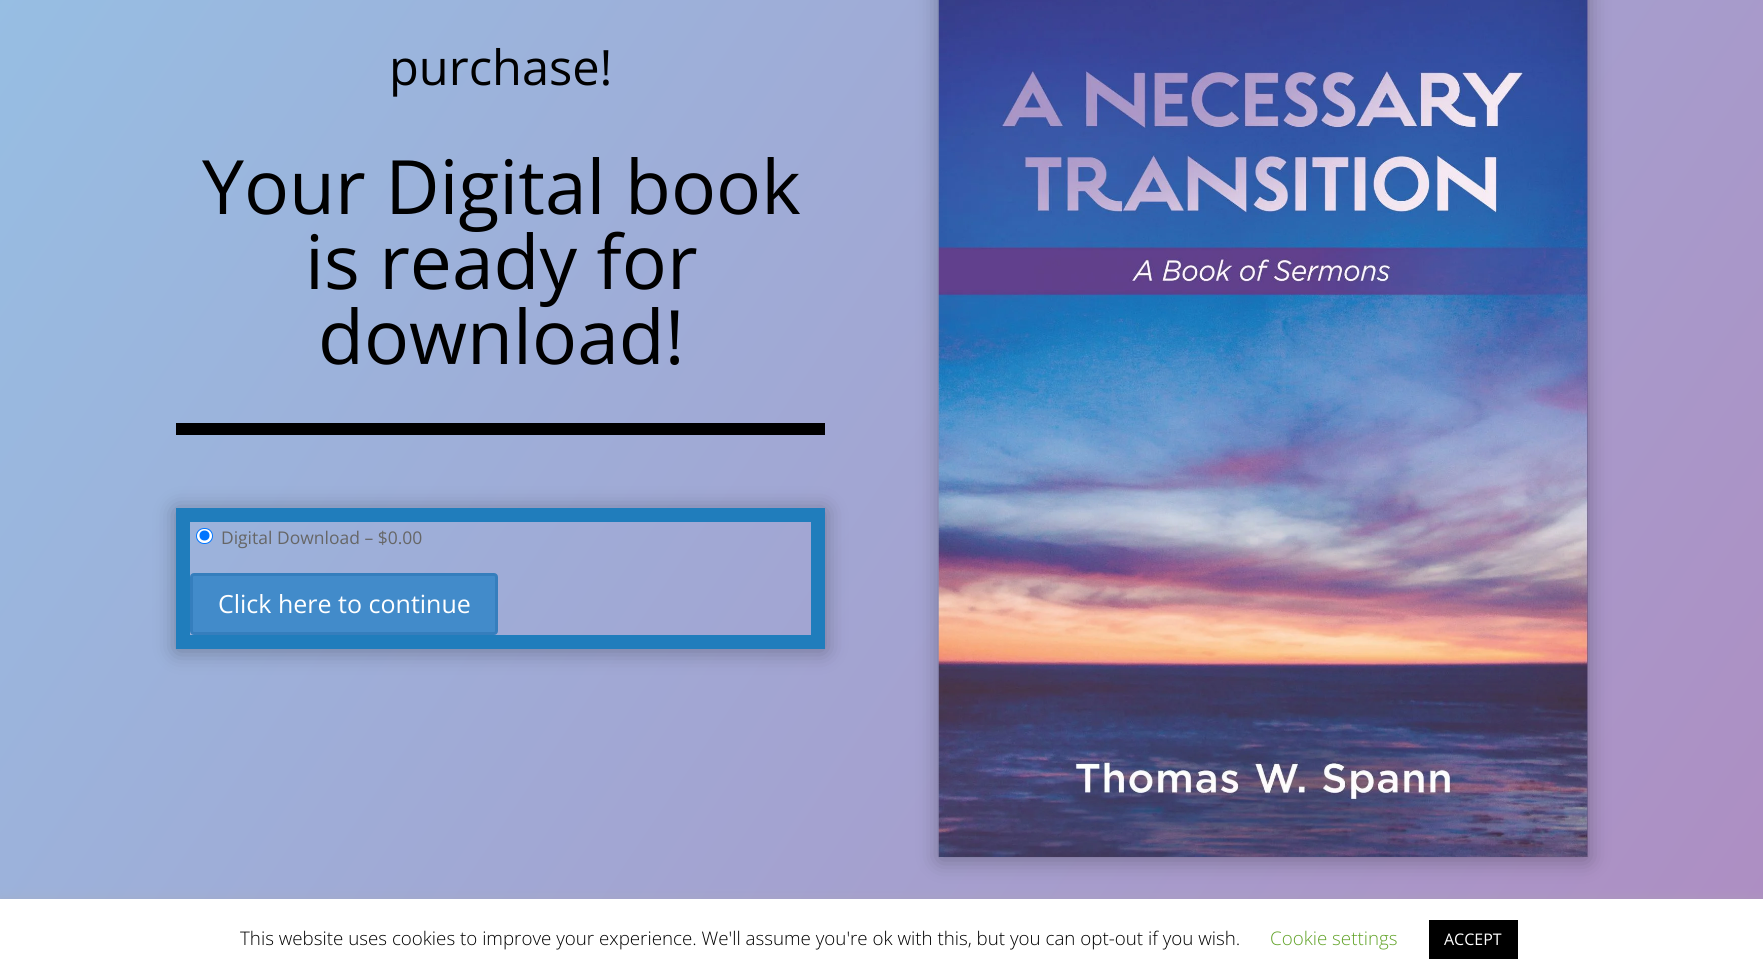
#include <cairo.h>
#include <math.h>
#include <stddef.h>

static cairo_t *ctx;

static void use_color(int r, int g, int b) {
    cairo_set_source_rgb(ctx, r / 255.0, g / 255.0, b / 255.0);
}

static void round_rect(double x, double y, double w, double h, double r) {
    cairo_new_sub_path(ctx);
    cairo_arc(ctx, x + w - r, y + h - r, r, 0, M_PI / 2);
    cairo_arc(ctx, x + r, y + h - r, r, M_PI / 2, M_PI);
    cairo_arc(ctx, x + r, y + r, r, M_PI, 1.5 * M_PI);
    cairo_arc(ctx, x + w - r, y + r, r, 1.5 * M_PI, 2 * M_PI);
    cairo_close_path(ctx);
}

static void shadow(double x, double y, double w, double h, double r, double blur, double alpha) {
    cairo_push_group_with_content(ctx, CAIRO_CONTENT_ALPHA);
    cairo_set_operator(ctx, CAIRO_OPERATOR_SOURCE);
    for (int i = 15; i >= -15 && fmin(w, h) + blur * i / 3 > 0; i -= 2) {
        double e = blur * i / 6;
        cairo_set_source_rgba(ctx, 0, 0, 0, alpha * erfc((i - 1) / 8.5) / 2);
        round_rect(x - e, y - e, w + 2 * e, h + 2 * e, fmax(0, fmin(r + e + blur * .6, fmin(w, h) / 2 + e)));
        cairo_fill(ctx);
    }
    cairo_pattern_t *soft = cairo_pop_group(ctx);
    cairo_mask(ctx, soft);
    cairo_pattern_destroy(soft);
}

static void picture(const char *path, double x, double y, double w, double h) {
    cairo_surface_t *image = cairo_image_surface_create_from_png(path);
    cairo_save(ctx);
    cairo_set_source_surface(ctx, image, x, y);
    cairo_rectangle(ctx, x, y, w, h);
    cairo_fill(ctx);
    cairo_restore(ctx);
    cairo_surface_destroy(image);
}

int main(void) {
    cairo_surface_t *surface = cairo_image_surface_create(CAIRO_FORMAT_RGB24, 1763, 980);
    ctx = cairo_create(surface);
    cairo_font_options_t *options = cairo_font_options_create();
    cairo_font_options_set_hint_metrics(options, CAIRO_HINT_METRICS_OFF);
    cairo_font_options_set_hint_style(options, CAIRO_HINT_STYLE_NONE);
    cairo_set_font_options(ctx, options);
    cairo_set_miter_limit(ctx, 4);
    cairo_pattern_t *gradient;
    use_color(255, 255, 255);
    cairo_paint(ctx);
    gradient = cairo_pattern_create_linear(-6.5, -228, 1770, 970);
    cairo_pattern_add_color_stop_rgba(gradient, 0, 0.584, 0.757, 0.898, 1);
    cairo_pattern_add_color_stop_rgba(gradient, 1, 0.682, 0.553, 0.761, 1);
    cairo_set_source(ctx, gradient);
    cairo_pattern_destroy(gradient);
    cairo_rectangle(ctx, 0, 0, 1763, 899);
    cairo_fill(ctx);
    cairo_select_font_face(ctx, "Open Sans", CAIRO_FONT_SLANT_NORMAL, CAIRO_FONT_WEIGHT_NORMAL);
    cairo_set_font_size(ctx, 48.75);
    use_color(0, 0, 0);
    cairo_move_to(ctx, 389, 85);
    cairo_show_text(ctx, "purchase!");
    cairo_set_font_size(ctx, 75);
    cairo_move_to(ctx, 202, 214);
    cairo_show_text(ctx, "Your Digital book");
    cairo_move_to(ctx, 305, 289);
    cairo_show_text(ctx, "is ready for");
    cairo_move_to(ctx, 318, 364);
    cairo_show_text(ctx, "download!");
    cairo_rectangle(ctx, 176, 423, 649, 12);
    cairo_fill(ctx);
    cairo_save(ctx);
    cairo_set_fill_rule(ctx, CAIRO_FILL_RULE_EVEN_ODD);
    cairo_new_path(ctx);
    cairo_move_to(ctx, 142, 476);
    cairo_line_to(ctx, 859, 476);
    cairo_line_to(ctx, 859, 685);
    cairo_line_to(ctx, 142, 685);
    cairo_close_path(ctx);
    cairo_move_to(ctx, 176, 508);
    cairo_line_to(ctx, 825, 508);
    cairo_line_to(ctx, 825, 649);
    cairo_line_to(ctx, 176, 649);
    cairo_close_path(ctx);
    cairo_clip(ctx);
    use_color(0, 0, 0);
    shadow(176, 510, 649, 141, 0, 11, 0.3);
    cairo_restore(ctx);
    cairo_rectangle(ctx, 183, 515, 635, 127);
    use_color(32, 125, 188);
    cairo_set_line_width(ctx, 14);
    cairo_stroke(ctx);
    use_color(255, 255, 255);
    round_rect(196.5, 528.5, 16, 15, 7.5);
    cairo_fill_preserve(ctx);
    use_color(0, 117, 255);
    cairo_set_line_width(ctx, 1);
    cairo_stroke(ctx);
    cairo_arc(ctx, 204.5, 535.5, 5, 0, 2 * M_PI);
    cairo_fill(ctx);
    cairo_set_font_size(ctx, 17.5);
    use_color(102, 102, 102);
    cairo_move_to(ctx, 221, 544);
    cairo_show_text(ctx, "Digital Download – $0.00");
    use_color(66, 139, 202);
    round_rect(191.5, 574.5, 305, 59, 2.5);
    cairo_fill_preserve(ctx);
    use_color(53, 126, 189);
    cairo_set_line_width(ctx, 3);
    cairo_stroke(ctx);
    cairo_set_font_size(ctx, 25);
    use_color(255, 255, 255);
    cairo_move_to(ctx, 218, 613);
    cairo_show_text(ctx, "Click here to continue");
    use_color(0, 0, 0);
    shadow(939, -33, 649, 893, 0, 11, 0.3);
    picture("img1.png", 938, 0, 650, 857);
    use_color(172, 171, 171);
    shadow(0, 898, 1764, 81, 0, 6, 0.3);
    use_color(255, 255, 255);
    cairo_rectangle(ctx, 0, 899, 1763, 81);
    cairo_fill(ctx);
    cairo_select_font_face(ctx, "Open Sans Light", CAIRO_FONT_SLANT_NORMAL, CAIRO_FONT_WEIGHT_NORMAL);
    cairo_set_font_size(ctx, 18.75);
    use_color(0, 0, 0);
    cairo_move_to(ctx, 240, 945);
    cairo_show_text(ctx, "This website uses cookies to improve your experience. We'll assume you're ok with this, but you can opt-out if you wish.");
    use_color(98, 163, 41);
    cairo_move_to(ctx, 1270, 945);
    cairo_show_text(ctx, "Cookie settings");
    use_color(0, 0, 0);
    cairo_rectangle(ctx, 1429, 920, 89, 39);
    cairo_fill(ctx);
    cairo_select_font_face(ctx, "Open Sans", CAIRO_FONT_SLANT_NORMAL, CAIRO_FONT_WEIGHT_NORMAL);
    cairo_set_font_size(ctx, 16);
    use_color(255, 255, 255);
    cairo_move_to(ctx, 1444, 945);
    cairo_show_text(ctx, "ACCEPT");
    cairo_surface_write_to_png(surface, "result.png");
    cairo_font_options_destroy(options);
    cairo_destroy(ctx);
    cairo_surface_destroy(surface);
    return 0;
}
